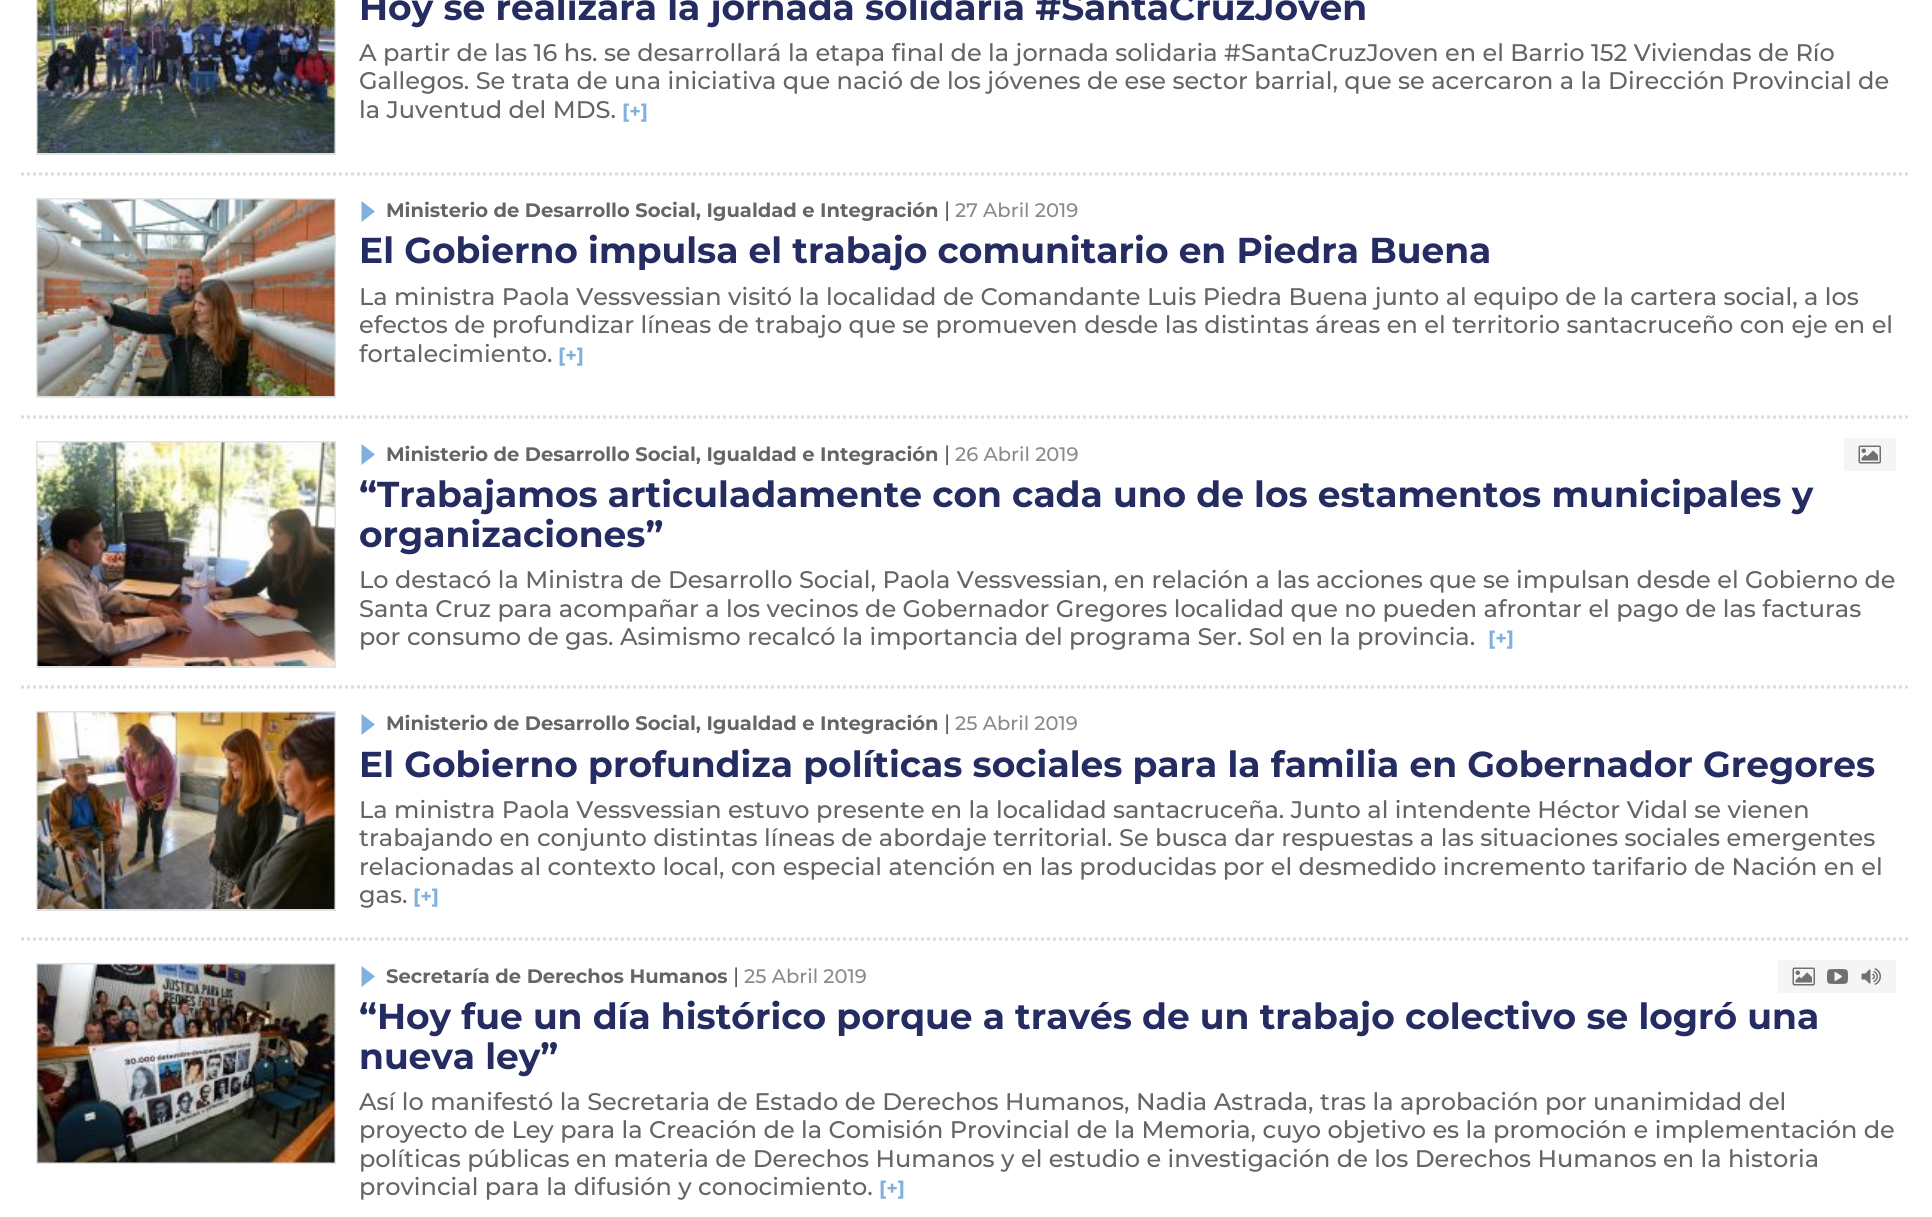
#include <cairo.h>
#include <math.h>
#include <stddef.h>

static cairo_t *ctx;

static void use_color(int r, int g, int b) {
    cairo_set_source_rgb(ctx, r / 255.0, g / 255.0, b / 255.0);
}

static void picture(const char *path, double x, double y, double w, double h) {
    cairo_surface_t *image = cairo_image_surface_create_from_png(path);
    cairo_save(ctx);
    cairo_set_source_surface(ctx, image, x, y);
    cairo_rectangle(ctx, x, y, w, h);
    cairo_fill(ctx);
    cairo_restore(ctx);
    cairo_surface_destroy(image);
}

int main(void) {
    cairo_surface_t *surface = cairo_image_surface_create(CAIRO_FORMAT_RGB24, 1932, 1217);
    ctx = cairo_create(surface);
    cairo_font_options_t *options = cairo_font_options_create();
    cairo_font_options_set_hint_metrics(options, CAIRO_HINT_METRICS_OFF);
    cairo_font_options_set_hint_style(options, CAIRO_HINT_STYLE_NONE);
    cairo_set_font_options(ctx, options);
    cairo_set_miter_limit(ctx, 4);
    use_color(255, 255, 255);
    cairo_paint(ctx);
    cairo_rectangle(ctx, 37, -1, 298, 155);
    use_color(226, 226, 226);
    cairo_stroke(ctx);
    picture("img1.png", 37, 0, 298, 153);
    cairo_select_font_face(ctx, "Montserrat", CAIRO_FONT_SLANT_NORMAL, CAIRO_FONT_WEIGHT_BOLD);
    cairo_set_font_size(ctx, 36);
    use_color(37, 44, 97);
    cairo_move_to(ctx, 359, 20);
    cairo_show_text(ctx, "Hoy se realizará la jornada solidaria #SantaCruzJoven");
    cairo_select_font_face(ctx, "Montserrat Medium", CAIRO_FONT_SLANT_NORMAL, CAIRO_FONT_WEIGHT_NORMAL);
    cairo_set_font_size(ctx, 24);
    use_color(101, 101, 101);
    cairo_move_to(ctx, 359, 61);
    cairo_show_text(ctx, "A partir de las 16 hs. se desarrollará la etapa final de la jornada solidaria #SantaCruzJoven en el Barrio 152 Viviendas de Río");
    cairo_move_to(ctx, 359, 89);
    cairo_show_text(ctx, "Gallegos. Se trata de una iniciativa que nació de los jóvenes de ese sector barrial, que se acercaron a la Dirección Provincial de");
    cairo_move_to(ctx, 359, 118);
    cairo_show_text(ctx, "la Juventud del MDS.");
    cairo_select_font_face(ctx, "Montserrat", CAIRO_FONT_SLANT_NORMAL, CAIRO_FONT_WEIGHT_BOLD);
    cairo_set_font_size(ctx, 19.5);
    use_color(128, 176, 222);
    cairo_move_to(ctx, 622, 118);
    cairo_show_text(ctx, "[+]");
    cairo_new_path(ctx);
    cairo_move_to(ctx, 21, 174);
    cairo_line_to(ctx, 1911, 174);
    use_color(219, 219, 219);
    cairo_set_line_width(ctx, 3);
    cairo_set_dash(ctx, (double[]){3, 3}, 2, 0);
    cairo_stroke(ctx);
    cairo_rectangle(ctx, 37, 199, 298, 198);
    use_color(226, 226, 226);
    cairo_set_line_width(ctx, 2);
    cairo_set_dash(ctx, NULL, 0, 0);
    cairo_stroke(ctx);
    picture("img2.png", 37, 199, 298, 197);
    use_color(128, 176, 222);
    cairo_new_path(ctx);
    cairo_move_to(ctx, 361.5, 222);
    cairo_line_to(ctx, 361.5, 201);
    cairo_line_to(ctx, 375, 211.5);
    cairo_close_path(ctx);
    cairo_fill(ctx);
    use_color(101, 101, 101);
    cairo_move_to(ctx, 386, 217);
    cairo_show_text(ctx, "Ministerio de Desarrollo Social, Igualdad e Integración");
    cairo_select_font_face(ctx, "Montserrat", CAIRO_FONT_SLANT_NORMAL, CAIRO_FONT_WEIGHT_NORMAL);
    cairo_set_font_size(ctx, 21);
    use_color(51, 51, 51);
    cairo_move_to(ctx, 944, 217);
    cairo_show_text(ctx, "|");
    cairo_select_font_face(ctx, "Montserrat Medium", CAIRO_FONT_SLANT_NORMAL, CAIRO_FONT_WEIGHT_NORMAL);
    cairo_set_font_size(ctx, 19.5);
    use_color(138, 138, 138);
    cairo_move_to(ctx, 955, 217);
    cairo_show_text(ctx, "27 Abril 2019");
    cairo_select_font_face(ctx, "Montserrat", CAIRO_FONT_SLANT_NORMAL, CAIRO_FONT_WEIGHT_BOLD);
    cairo_set_font_size(ctx, 36);
    use_color(37, 44, 97);
    cairo_move_to(ctx, 359, 263);
    cairo_show_text(ctx, "El Gobierno impulsa el trabajo comunitario en Piedra Buena");
    cairo_select_font_face(ctx, "Montserrat Medium", CAIRO_FONT_SLANT_NORMAL, CAIRO_FONT_WEIGHT_NORMAL);
    cairo_set_font_size(ctx, 24);
    use_color(101, 101, 101);
    cairo_move_to(ctx, 359, 305);
    cairo_show_text(ctx, "La ministra Paola Vessvessian visitó la localidad de Comandante Luis Piedra Buena junto al equipo de la cartera social, a los");
    cairo_move_to(ctx, 359, 333);
    cairo_show_text(ctx, "efectos de profundizar líneas de trabajo que se promueven desde las distintas áreas en el territorio santacruceño con eje en el");
    cairo_move_to(ctx, 359, 362);
    cairo_show_text(ctx, "fortalecimiento.");
    cairo_select_font_face(ctx, "Montserrat", CAIRO_FONT_SLANT_NORMAL, CAIRO_FONT_WEIGHT_BOLD);
    cairo_set_font_size(ctx, 19.5);
    use_color(128, 176, 222);
    cairo_move_to(ctx, 558, 362);
    cairo_show_text(ctx, "[+]");
    cairo_new_path(ctx);
    cairo_move_to(ctx, 21, 417);
    cairo_line_to(ctx, 1911, 417);
    use_color(219, 219, 219);
    cairo_set_line_width(ctx, 3);
    cairo_set_dash(ctx, (double[]){3, 3}, 2, 0);
    cairo_stroke(ctx);
    cairo_rectangle(ctx, 37, 442, 298, 225);
    use_color(226, 226, 226);
    cairo_set_line_width(ctx, 2);
    cairo_set_dash(ctx, NULL, 0, 0);
    cairo_stroke(ctx);
    picture("img3.png", 37, 442, 298, 224);
    use_color(128, 176, 222);
    cairo_new_path(ctx);
    cairo_move_to(ctx, 361.5, 465);
    cairo_line_to(ctx, 361.5, 444);
    cairo_line_to(ctx, 375, 454.5);
    cairo_close_path(ctx);
    cairo_fill(ctx);
    use_color(101, 101, 101);
    cairo_move_to(ctx, 386, 461);
    cairo_show_text(ctx, "Ministerio de Desarrollo Social, Igualdad e Integración");
    cairo_select_font_face(ctx, "Montserrat", CAIRO_FONT_SLANT_NORMAL, CAIRO_FONT_WEIGHT_NORMAL);
    cairo_set_font_size(ctx, 21);
    use_color(51, 51, 51);
    cairo_move_to(ctx, 944, 461);
    cairo_show_text(ctx, "|");
    cairo_select_font_face(ctx, "Montserrat Medium", CAIRO_FONT_SLANT_NORMAL, CAIRO_FONT_WEIGHT_NORMAL);
    cairo_set_font_size(ctx, 19.5);
    use_color(138, 138, 138);
    cairo_move_to(ctx, 955, 461);
    cairo_show_text(ctx, "26 Abril 2019");
    use_color(245, 245, 245);
    cairo_rectangle(ctx, 1844, 438, 52, 33);
    cairo_fill(ctx);
    picture("img4.png", 1858, 445, 23, 19);
    cairo_select_font_face(ctx, "Montserrat", CAIRO_FONT_SLANT_NORMAL, CAIRO_FONT_WEIGHT_BOLD);
    cairo_set_font_size(ctx, 36);
    use_color(37, 44, 97);
    cairo_move_to(ctx, 359, 507);
    cairo_show_text(ctx, "“Trabajamos articuladamente con cada uno de los estamentos municipales y");
    cairo_move_to(ctx, 359, 547);
    cairo_show_text(ctx, "organizaciones”");
    cairo_select_font_face(ctx, "Montserrat Medium", CAIRO_FONT_SLANT_NORMAL, CAIRO_FONT_WEIGHT_NORMAL);
    cairo_set_font_size(ctx, 24);
    use_color(101, 101, 101);
    cairo_move_to(ctx, 359, 588);
    cairo_show_text(ctx, "Lo destacó la Ministra de Desarrollo Social, Paola Vessvessian, en relación a las acciones que se impulsan desde el Gobierno de");
    cairo_move_to(ctx, 359, 617);
    cairo_show_text(ctx, "Santa Cruz para acompañar a los vecinos de Gobernador Gregores localidad que no pueden afrontar el pago de las facturas");
    cairo_move_to(ctx, 359, 645);
    cairo_show_text(ctx, "por consumo de gas. Asimismo recalcó la importancia del programa Ser. Sol en la provincia.");
    cairo_select_font_face(ctx, "Montserrat", CAIRO_FONT_SLANT_NORMAL, CAIRO_FONT_WEIGHT_BOLD);
    cairo_set_font_size(ctx, 19.5);
    use_color(128, 176, 222);
    cairo_move_to(ctx, 1488, 645);
    cairo_show_text(ctx, "[+]");
    cairo_new_path(ctx);
    cairo_move_to(ctx, 21, 687);
    cairo_line_to(ctx, 1911, 687);
    use_color(219, 219, 219);
    cairo_set_line_width(ctx, 3);
    cairo_set_dash(ctx, (double[]){3, 3}, 2, 0);
    cairo_stroke(ctx);
    cairo_rectangle(ctx, 37, 712, 298, 198);
    use_color(226, 226, 226);
    cairo_set_line_width(ctx, 2);
    cairo_set_dash(ctx, NULL, 0, 0);
    cairo_stroke(ctx);
    picture("img5.png", 37, 712, 298, 197);
    use_color(128, 176, 222);
    cairo_new_path(ctx);
    cairo_move_to(ctx, 361.5, 735);
    cairo_line_to(ctx, 361.5, 714);
    cairo_line_to(ctx, 375, 724.5);
    cairo_close_path(ctx);
    cairo_fill(ctx);
    use_color(101, 101, 101);
    cairo_move_to(ctx, 386, 730);
    cairo_show_text(ctx, "Ministerio de Desarrollo Social, Igualdad e Integración");
    cairo_select_font_face(ctx, "Montserrat", CAIRO_FONT_SLANT_NORMAL, CAIRO_FONT_WEIGHT_NORMAL);
    cairo_set_font_size(ctx, 21);
    use_color(51, 51, 51);
    cairo_move_to(ctx, 944, 730);
    cairo_show_text(ctx, "|");
    cairo_select_font_face(ctx, "Montserrat Medium", CAIRO_FONT_SLANT_NORMAL, CAIRO_FONT_WEIGHT_NORMAL);
    cairo_set_font_size(ctx, 19.5);
    use_color(138, 138, 138);
    cairo_move_to(ctx, 955, 730);
    cairo_show_text(ctx, "25 Abril 2019");
    cairo_select_font_face(ctx, "Montserrat", CAIRO_FONT_SLANT_NORMAL, CAIRO_FONT_WEIGHT_BOLD);
    cairo_set_font_size(ctx, 36);
    use_color(37, 44, 97);
    cairo_move_to(ctx, 359, 777);
    cairo_show_text(ctx, "El Gobierno profundiza políticas sociales para la familia en Gobernador Gregores");
    cairo_select_font_face(ctx, "Montserrat Medium", CAIRO_FONT_SLANT_NORMAL, CAIRO_FONT_WEIGHT_NORMAL);
    cairo_set_font_size(ctx, 24);
    use_color(101, 101, 101);
    cairo_move_to(ctx, 359, 818);
    cairo_show_text(ctx, "La ministra Paola Vessvessian estuvo presente en la localidad santacruceña. Junto al intendente Héctor Vidal se vienen");
    cairo_move_to(ctx, 359, 846);
    cairo_show_text(ctx, "trabajando en conjunto distintas líneas de abordaje territorial. Se busca dar respuestas a las situaciones sociales emergentes");
    cairo_move_to(ctx, 359, 875);
    cairo_show_text(ctx, "relacionadas al contexto local, con especial atención en las producidas por el desmedido incremento tarifario de Nación en el");
    cairo_move_to(ctx, 359, 903);
    cairo_show_text(ctx, "gas.");
    cairo_select_font_face(ctx, "Montserrat", CAIRO_FONT_SLANT_NORMAL, CAIRO_FONT_WEIGHT_BOLD);
    cairo_set_font_size(ctx, 19.5);
    use_color(128, 176, 222);
    cairo_move_to(ctx, 413, 903);
    cairo_show_text(ctx, "[+]");
    cairo_new_path(ctx);
    cairo_move_to(ctx, 21, 939);
    cairo_line_to(ctx, 1911, 939);
    use_color(219, 219, 219);
    cairo_set_line_width(ctx, 3);
    cairo_set_dash(ctx, (double[]){3, 3}, 2, 0);
    cairo_stroke(ctx);
    cairo_rectangle(ctx, 37, 964, 298, 199);
    use_color(226, 226, 226);
    cairo_set_line_width(ctx, 2);
    cairo_set_dash(ctx, NULL, 0, 0);
    cairo_stroke(ctx);
    picture("img6.png", 37, 964, 298, 199);
    use_color(128, 176, 222);
    cairo_new_path(ctx);
    cairo_move_to(ctx, 361.5, 987);
    cairo_line_to(ctx, 361.5, 966);
    cairo_line_to(ctx, 375, 976.5);
    cairo_close_path(ctx);
    cairo_fill(ctx);
    use_color(101, 101, 101);
    cairo_move_to(ctx, 386, 983);
    cairo_show_text(ctx, "Secretaría de Derechos Humanos");
    cairo_select_font_face(ctx, "Montserrat", CAIRO_FONT_SLANT_NORMAL, CAIRO_FONT_WEIGHT_NORMAL);
    cairo_set_font_size(ctx, 21);
    use_color(51, 51, 51);
    cairo_move_to(ctx, 733, 983);
    cairo_show_text(ctx, "|");
    cairo_select_font_face(ctx, "Montserrat Medium", CAIRO_FONT_SLANT_NORMAL, CAIRO_FONT_WEIGHT_NORMAL);
    cairo_set_font_size(ctx, 19.5);
    use_color(138, 138, 138);
    cairo_move_to(ctx, 744, 983);
    cairo_show_text(ctx, "25 Abril 2019");
    use_color(245, 245, 245);
    cairo_rectangle(ctx, 1778, 960, 118, 33);
    cairo_fill(ctx);
    picture("img4.png", 1792, 967, 23, 19);
    picture("img7.png", 1827, 969, 21, 15);
    picture("img8.png", 1861, 968, 20, 17);
    cairo_select_font_face(ctx, "Montserrat", CAIRO_FONT_SLANT_NORMAL, CAIRO_FONT_WEIGHT_BOLD);
    cairo_set_font_size(ctx, 36);
    use_color(37, 44, 97);
    cairo_move_to(ctx, 359, 1029);
    cairo_show_text(ctx, "“Hoy fue un día histórico porque a través de un trabajo colectivo se logró una");
    cairo_move_to(ctx, 359, 1069);
    cairo_show_text(ctx, "nueva ley”");
    cairo_select_font_face(ctx, "Montserrat Medium", CAIRO_FONT_SLANT_NORMAL, CAIRO_FONT_WEIGHT_NORMAL);
    cairo_set_font_size(ctx, 24);
    use_color(101, 101, 101);
    cairo_move_to(ctx, 359, 1110);
    cairo_show_text(ctx, "Así lo manifestó la Secretaria de Estado de Derechos Humanos, Nadia Astrada, tras la aprobación por unanimidad del");
    cairo_move_to(ctx, 359, 1138);
    cairo_show_text(ctx, "proyecto de Ley para la Creación de la Comisión Provincial de la Memoria, cuyo objetivo es la promoción e implementación de");
    cairo_move_to(ctx, 359, 1167);
    cairo_show_text(ctx, "políticas públicas en materia de Derechos Humanos y el estudio e investigación de los Derechos Humanos en la historia");
    cairo_move_to(ctx, 359, 1195);
    cairo_show_text(ctx, "provincial para la difusión y conocimiento.");
    cairo_select_font_face(ctx, "Montserrat", CAIRO_FONT_SLANT_NORMAL, CAIRO_FONT_WEIGHT_BOLD);
    cairo_set_font_size(ctx, 19.5);
    use_color(128, 176, 222);
    cairo_move_to(ctx, 879, 1195);
    cairo_show_text(ctx, "[+]");
    cairo_surface_write_to_png(surface, "result.png");
    cairo_font_options_destroy(options);
    cairo_destroy(ctx);
    cairo_surface_destroy(surface);
    return 0;
}
